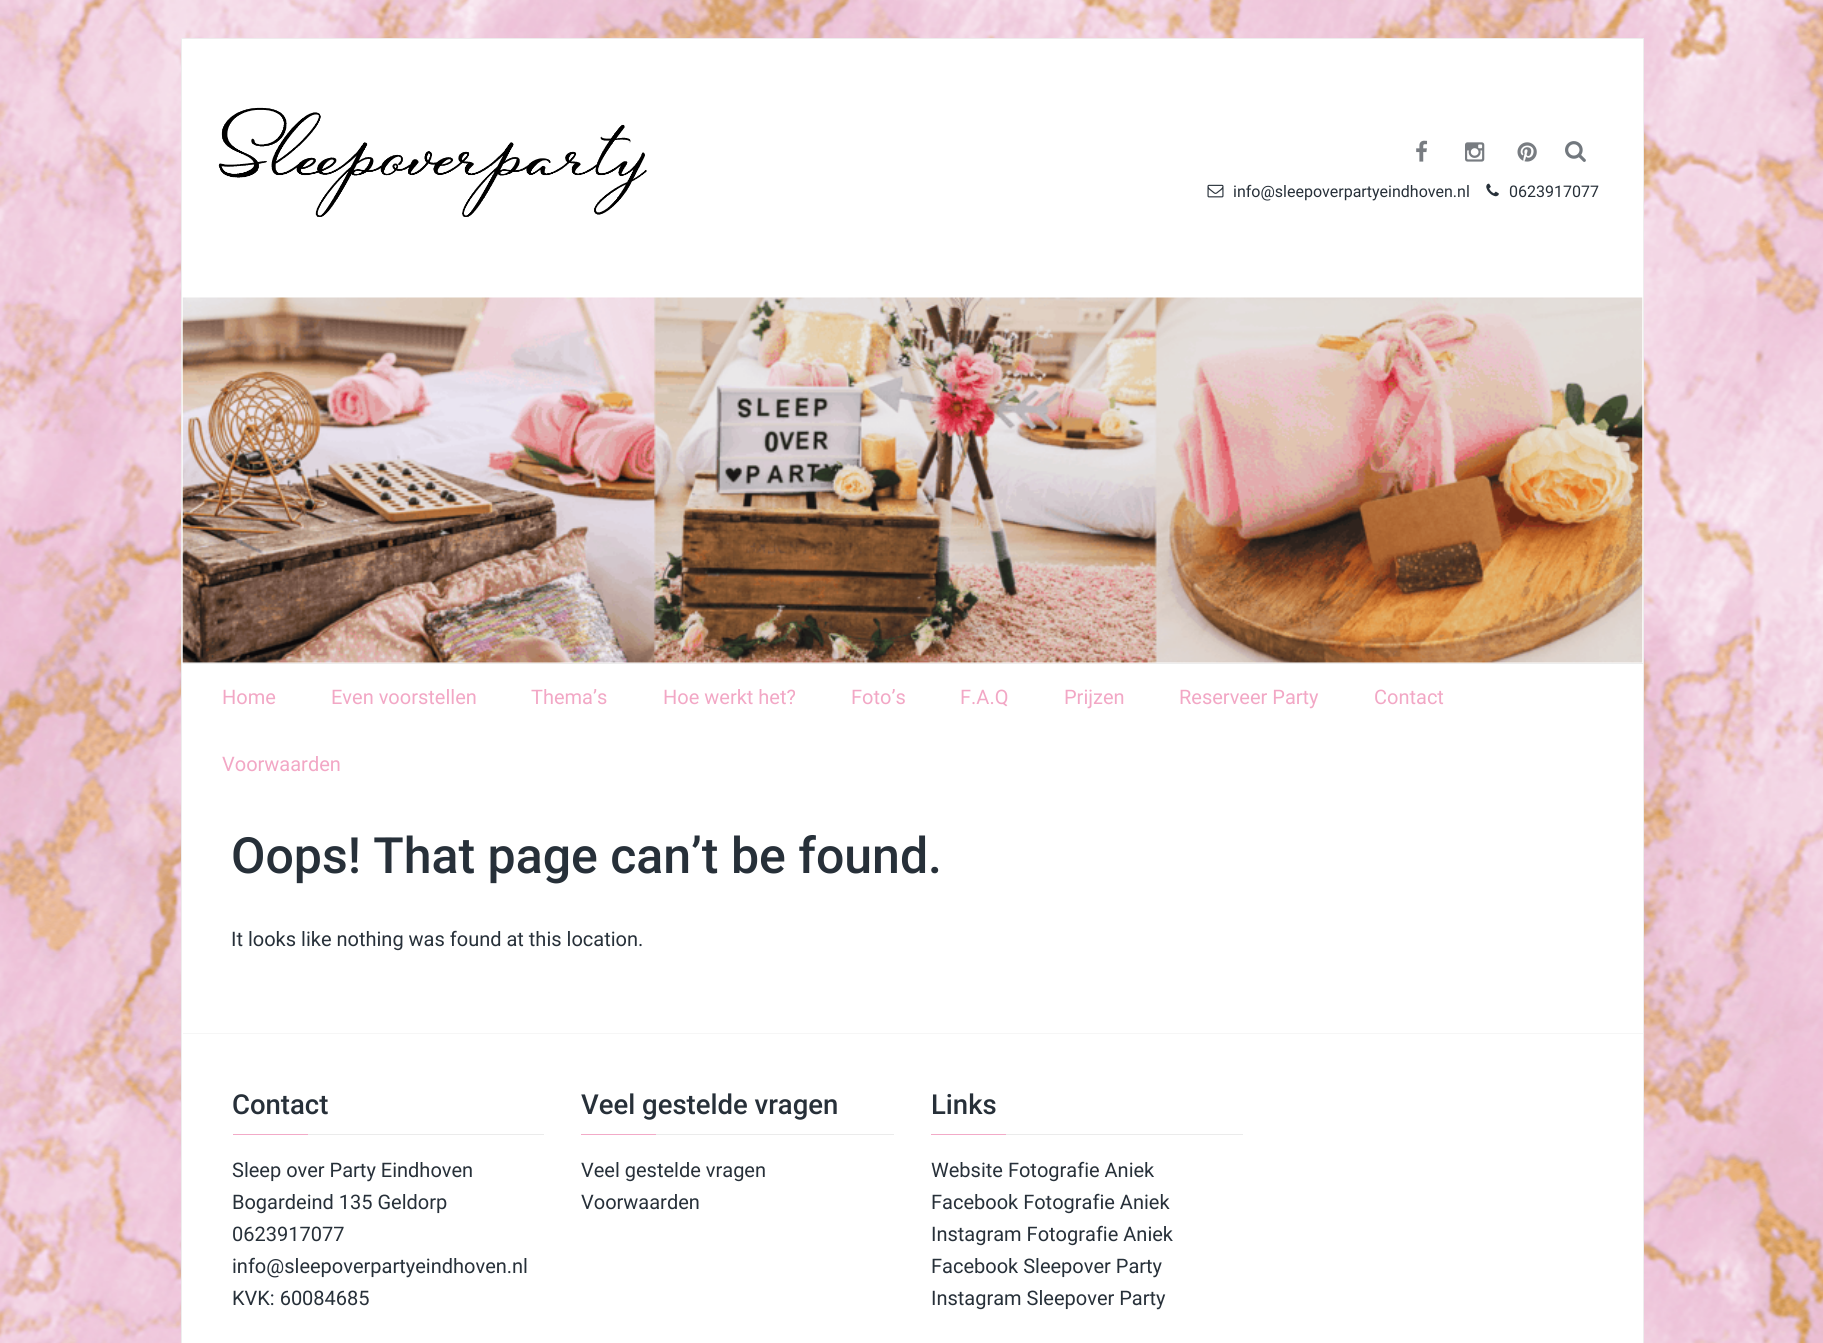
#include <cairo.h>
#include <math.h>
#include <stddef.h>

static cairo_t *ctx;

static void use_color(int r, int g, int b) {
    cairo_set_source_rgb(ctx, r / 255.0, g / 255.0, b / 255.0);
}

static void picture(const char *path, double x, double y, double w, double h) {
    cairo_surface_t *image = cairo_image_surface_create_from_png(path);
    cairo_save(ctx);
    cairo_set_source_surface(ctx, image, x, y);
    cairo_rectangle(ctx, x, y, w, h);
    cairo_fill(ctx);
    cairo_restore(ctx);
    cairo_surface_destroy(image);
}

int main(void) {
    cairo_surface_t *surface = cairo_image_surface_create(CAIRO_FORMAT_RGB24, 1823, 1343);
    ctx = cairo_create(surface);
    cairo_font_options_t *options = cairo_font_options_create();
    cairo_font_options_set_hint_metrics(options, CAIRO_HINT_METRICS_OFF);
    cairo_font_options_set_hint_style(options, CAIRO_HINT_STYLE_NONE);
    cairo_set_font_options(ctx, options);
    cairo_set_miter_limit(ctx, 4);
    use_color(255, 255, 255);
    cairo_paint(ctx);
    picture("img1.png", 0, 0, 1823, 1343);
    use_color(255, 255, 255);
    cairo_rectangle(ctx, 181.5, 38.5, 1462, 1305);
    cairo_fill_preserve(ctx);
    use_color(237, 237, 237);
    cairo_set_line_width(ctx, 1);
    cairo_stroke(ctx);
    picture("img2.png", 218, 107, 429, 110);
    picture("img3.png", 1416, 140, 12, 22);
    picture("img4.png", 1465, 142, 20, 20);
    picture("img5.png", 1517, 142, 20, 20);
    picture("img6.png", 1565, 141, 21, 21);
    picture("img7.png", 1207, 184, 17, 14);
    cairo_select_font_face(ctx, "Roboto", CAIRO_FONT_SLANT_NORMAL, CAIRO_FONT_WEIGHT_NORMAL);
    cairo_set_font_size(ctx, 16);
    use_color(39, 48, 57);
    cairo_move_to(ctx, 1233, 197);
    cairo_show_text(ctx, "info@sleepoverpartyeindhoven.nl");
    picture("img8.png", 1486, 183, 13, 14);
    cairo_move_to(ctx, 1509, 197);
    cairo_show_text(ctx, "0623917077");
    picture("img9.png", 182, 297, 1461, 366);
    use_color(237, 237, 237);
    cairo_rectangle(ctx, 183, 663, 1460, 1);
    cairo_fill(ctx);
    cairo_set_font_size(ctx, 20);
    use_color(242, 167, 197);
    cairo_move_to(ctx, 222, 704);
    cairo_show_text(ctx, "Home");
    cairo_move_to(ctx, 331, 704);
    cairo_show_text(ctx, "Even voorstellen");
    cairo_move_to(ctx, 531, 704);
    cairo_show_text(ctx, "Thema’s");
    cairo_move_to(ctx, 663, 704);
    cairo_show_text(ctx, "Hoe werkt het?");
    cairo_move_to(ctx, 851, 704);
    cairo_show_text(ctx, "Foto’s");
    cairo_move_to(ctx, 960, 704);
    cairo_show_text(ctx, "F.A.Q");
    cairo_move_to(ctx, 1064, 704);
    cairo_show_text(ctx, "Prijzen");
    cairo_move_to(ctx, 1179, 704);
    cairo_show_text(ctx, "Reserveer Party");
    cairo_move_to(ctx, 1374, 704);
    cairo_show_text(ctx, "Contact");
    cairo_move_to(ctx, 222, 771);
    cairo_show_text(ctx, "Voorwaarden");
    cairo_select_font_face(ctx, "Roboto Medium", CAIRO_FONT_SLANT_NORMAL, CAIRO_FONT_WEIGHT_NORMAL);
    cairo_set_font_size(ctx, 50);
    use_color(39, 48, 57);
    cairo_move_to(ctx, 231, 873);
    cairo_show_text(ctx, "Oops! That page can’t be found.");
    cairo_select_font_face(ctx, "Roboto", CAIRO_FONT_SLANT_NORMAL, CAIRO_FONT_WEIGHT_NORMAL);
    cairo_set_font_size(ctx, 20);
    cairo_move_to(ctx, 231, 946);
    cairo_show_text(ctx, "It looks like nothing was found at this location.");
    use_color(246, 246, 246);
    cairo_rectangle(ctx, 183, 1033, 1460, 1);
    cairo_fill(ctx);
    use_color(235, 235, 235);
    cairo_rectangle(ctx, 308, 1134, 236, 1);
    cairo_fill(ctx);
    cairo_select_font_face(ctx, "Roboto Medium", CAIRO_FONT_SLANT_NORMAL, CAIRO_FONT_WEIGHT_NORMAL);
    cairo_set_font_size(ctx, 27.5);
    use_color(39, 48, 57);
    cairo_move_to(ctx, 232, 1114);
    cairo_show_text(ctx, "Contact");
    use_color(242, 170, 199);
    cairo_rectangle(ctx, 233, 1134, 75, 1);
    cairo_fill(ctx);
    cairo_select_font_face(ctx, "Roboto", CAIRO_FONT_SLANT_NORMAL, CAIRO_FONT_WEIGHT_NORMAL);
    cairo_set_font_size(ctx, 20);
    use_color(39, 48, 57);
    cairo_move_to(ctx, 232, 1177);
    cairo_show_text(ctx, "Sleep over Party Eindhoven");
    cairo_move_to(ctx, 232, 1209);
    cairo_show_text(ctx, "Bogardeind 135 Geldorp");
    cairo_move_to(ctx, 232, 1241);
    cairo_show_text(ctx, "0623917077");
    cairo_move_to(ctx, 232, 1273);
    cairo_show_text(ctx, "info@sleepoverpartyeindhoven.nl");
    cairo_move_to(ctx, 232, 1305);
    cairo_show_text(ctx, "KVK: 60084685");
    use_color(235, 235, 235);
    cairo_rectangle(ctx, 656, 1134, 238, 1);
    cairo_fill(ctx);
    cairo_select_font_face(ctx, "Roboto Medium", CAIRO_FONT_SLANT_NORMAL, CAIRO_FONT_WEIGHT_NORMAL);
    cairo_set_font_size(ctx, 27.5);
    use_color(39, 48, 57);
    cairo_move_to(ctx, 581, 1114);
    cairo_show_text(ctx, "Veel gestelde vragen");
    use_color(242, 170, 199);
    cairo_rectangle(ctx, 581, 1134, 75, 1);
    cairo_fill(ctx);
    cairo_select_font_face(ctx, "Roboto", CAIRO_FONT_SLANT_NORMAL, CAIRO_FONT_WEIGHT_NORMAL);
    cairo_set_font_size(ctx, 20);
    use_color(39, 48, 57);
    cairo_move_to(ctx, 581, 1177);
    cairo_show_text(ctx, "Veel gestelde vragen");
    cairo_move_to(ctx, 581, 1209);
    cairo_show_text(ctx, "Voorwaarden");
    use_color(235, 235, 235);
    cairo_rectangle(ctx, 1006, 1134, 237, 1);
    cairo_fill(ctx);
    cairo_select_font_face(ctx, "Roboto Medium", CAIRO_FONT_SLANT_NORMAL, CAIRO_FONT_WEIGHT_NORMAL);
    cairo_set_font_size(ctx, 27.5);
    use_color(39, 48, 57);
    cairo_move_to(ctx, 931, 1114);
    cairo_show_text(ctx, "Links");
    use_color(242, 170, 199);
    cairo_rectangle(ctx, 931, 1134, 75, 1);
    cairo_fill(ctx);
    cairo_select_font_face(ctx, "Roboto", CAIRO_FONT_SLANT_NORMAL, CAIRO_FONT_WEIGHT_NORMAL);
    cairo_set_font_size(ctx, 20);
    use_color(39, 48, 57);
    cairo_move_to(ctx, 931, 1177);
    cairo_show_text(ctx, "Website Fotografie Aniek");
    cairo_move_to(ctx, 931, 1209);
    cairo_show_text(ctx, "Facebook Fotografie Aniek");
    cairo_move_to(ctx, 931, 1241);
    cairo_show_text(ctx, "Instagram Fotografie Aniek");
    cairo_move_to(ctx, 931, 1273);
    cairo_show_text(ctx, "Facebook Sleepover Party");
    cairo_move_to(ctx, 931, 1305);
    cairo_show_text(ctx, "Instagram Sleepover Party");
    cairo_surface_write_to_png(surface, "result.png");
    cairo_font_options_destroy(options);
    cairo_destroy(ctx);
    cairo_surface_destroy(surface);
    return 0;
}
